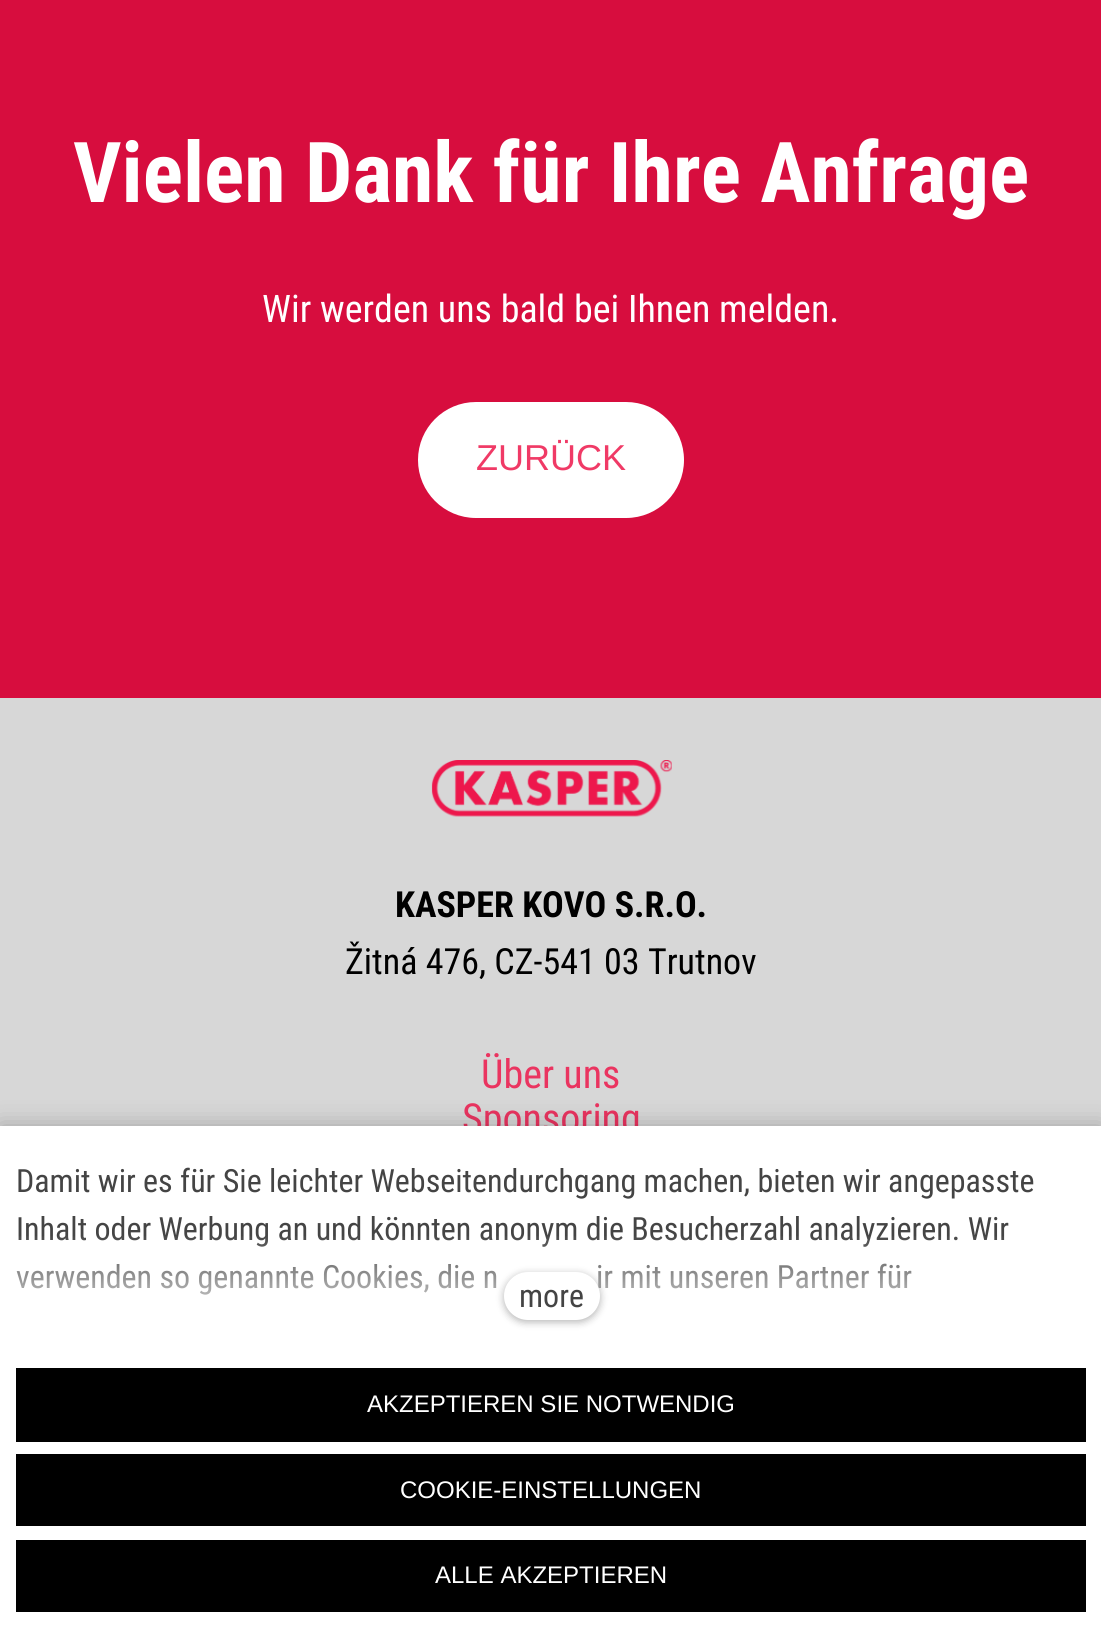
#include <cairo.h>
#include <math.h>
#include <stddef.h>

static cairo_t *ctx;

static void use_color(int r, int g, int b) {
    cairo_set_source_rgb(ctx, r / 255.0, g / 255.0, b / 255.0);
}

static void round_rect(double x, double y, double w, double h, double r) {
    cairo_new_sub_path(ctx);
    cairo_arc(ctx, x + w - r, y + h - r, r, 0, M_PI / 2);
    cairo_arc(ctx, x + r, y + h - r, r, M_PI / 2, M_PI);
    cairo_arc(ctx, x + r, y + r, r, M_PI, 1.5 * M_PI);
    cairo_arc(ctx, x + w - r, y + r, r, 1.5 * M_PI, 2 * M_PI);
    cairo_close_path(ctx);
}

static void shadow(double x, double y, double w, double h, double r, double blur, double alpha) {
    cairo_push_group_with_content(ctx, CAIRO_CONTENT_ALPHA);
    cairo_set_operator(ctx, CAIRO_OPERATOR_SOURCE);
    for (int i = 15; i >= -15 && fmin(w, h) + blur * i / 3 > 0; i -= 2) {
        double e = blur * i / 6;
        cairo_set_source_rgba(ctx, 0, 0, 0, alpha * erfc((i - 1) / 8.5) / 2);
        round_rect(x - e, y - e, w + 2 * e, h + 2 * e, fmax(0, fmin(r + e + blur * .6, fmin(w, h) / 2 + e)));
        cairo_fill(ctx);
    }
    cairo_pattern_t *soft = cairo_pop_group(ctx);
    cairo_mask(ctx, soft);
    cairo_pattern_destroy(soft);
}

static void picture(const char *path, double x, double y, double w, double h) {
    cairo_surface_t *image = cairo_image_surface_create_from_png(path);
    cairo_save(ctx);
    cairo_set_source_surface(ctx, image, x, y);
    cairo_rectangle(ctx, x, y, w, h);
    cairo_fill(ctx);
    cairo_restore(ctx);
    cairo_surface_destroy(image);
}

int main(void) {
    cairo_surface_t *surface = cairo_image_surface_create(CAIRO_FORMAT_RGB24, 1101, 1644);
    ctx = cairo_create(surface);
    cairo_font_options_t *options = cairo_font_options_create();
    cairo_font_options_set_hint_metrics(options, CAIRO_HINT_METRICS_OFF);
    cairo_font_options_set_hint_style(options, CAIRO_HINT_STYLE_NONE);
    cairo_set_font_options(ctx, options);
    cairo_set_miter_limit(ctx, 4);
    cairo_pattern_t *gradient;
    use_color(215, 13, 62);
    cairo_paint(ctx);
    cairo_select_font_face(ctx, "Roboto Condensed", CAIRO_FONT_SLANT_NORMAL, CAIRO_FONT_WEIGHT_BOLD);
    cairo_set_font_size(ctx, 84);
    use_color(255, 255, 255);
    cairo_move_to(ctx, 73, 202);
    cairo_show_text(ctx, "Vielen Dank für Ihre Anfrage");
    cairo_select_font_face(ctx, "Roboto Condensed", CAIRO_FONT_SLANT_NORMAL, CAIRO_FONT_WEIGHT_NORMAL);
    cairo_set_font_size(ctx, 38);
    cairo_move_to(ctx, 262, 322);
    cairo_show_text(ctx, "Wir werden uns bald bei Ihnen melden.");
    round_rect(418, 402, 266, 116, 58);
    cairo_fill(ctx);
    cairo_select_font_face(ctx, "Arimo", CAIRO_FONT_SLANT_NORMAL, CAIRO_FONT_WEIGHT_NORMAL);
    cairo_set_font_size(ctx, 36);
    use_color(240, 58, 102);
    cairo_move_to(ctx, 476, 470);
    cairo_show_text(ctx, "ZURÜCK");
    use_color(215, 215, 215);
    cairo_rectangle(ctx, 0, 698, 1101, 428);
    cairo_fill(ctx);
    picture("img1.png", 431, 760, 241, 57);
    cairo_select_font_face(ctx, "Roboto Condensed", CAIRO_FONT_SLANT_NORMAL, CAIRO_FONT_WEIGHT_BOLD);
    use_color(0, 0, 0);
    cairo_move_to(ctx, 395, 917);
    cairo_show_text(ctx, "KASPER KOVO S.R.O.");
    cairo_select_font_face(ctx, "Roboto Condensed", CAIRO_FONT_SLANT_NORMAL, CAIRO_FONT_WEIGHT_NORMAL);
    cairo_move_to(ctx, 345, 974);
    cairo_show_text(ctx, "Žitná 476, CZ-541 03 Trutnov");
    cairo_set_font_size(ctx, 40);
    use_color(234, 52, 96);
    cairo_move_to(ctx, 481, 1088);
    cairo_show_text(ctx, "Über uns");
    cairo_move_to(ctx, 462, 1132);
    cairo_show_text(ctx, "Sponsoring");
    use_color(0, 0, 0);
    shadow(0, 1126, 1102, 518, 0, 12, 0.25);
    use_color(255, 255, 255);
    cairo_rectangle(ctx, 0, 1126, 1101, 518);
    cairo_fill(ctx);
    cairo_set_font_size(ctx, 32);
    use_color(68, 68, 68);
    cairo_move_to(ctx, 16, 1192);
    cairo_show_text(ctx, "Damit wir es für Sie leichter Webseitendurchgang machen, bieten wir angepasste");
    cairo_move_to(ctx, 16, 1240);
    cairo_show_text(ctx, "Inhalt oder Werbung an und könnten anonym die Besucherzahl analyzieren. Wir");
    cairo_move_to(ctx, 16, 1288);
    cairo_show_text(ctx, "verwenden so genannte Cookies, die n");
    cairo_move_to(ctx, 596, 1288);
    cairo_show_text(ctx, "ir mit unseren Partner für");
    gradient = cairo_pattern_create_linear(551, 1336, 551, 1234);
    cairo_pattern_add_color_stop_rgba(gradient, 0, 1, 1, 1, 1);
    cairo_pattern_add_color_stop_rgba(gradient, 1, 1, 1, 1, 0);
    cairo_set_source(ctx, gradient);
    cairo_pattern_destroy(gradient);
    cairo_rectangle(ctx, 16, 1236, 988, 59);
    cairo_fill(ctx);
    use_color(0, 0, 0);
    shadow(504, 1274, 96, 48, 24, 4, 0.3);
    use_color(255, 255, 255);
    round_rect(504, 1272, 96, 48, 24);
    cairo_fill(ctx);
    use_color(68, 68, 68);
    cairo_move_to(ctx, 519, 1307);
    cairo_show_text(ctx, "more");
    use_color(0, 0, 0);
    cairo_rectangle(ctx, 16, 1368, 1070, 74);
    cairo_fill(ctx);
    cairo_select_font_face(ctx, "Arimo", CAIRO_FONT_SLANT_NORMAL, CAIRO_FONT_WEIGHT_NORMAL);
    cairo_set_font_size(ctx, 24);
    use_color(255, 255, 255);
    cairo_move_to(ctx, 367, 1412);
    cairo_show_text(ctx, "AKZEPTIEREN SIE NOTWENDIG");
    use_color(0, 0, 0);
    cairo_rectangle(ctx, 16, 1454, 1070, 72);
    cairo_fill(ctx);
    use_color(255, 255, 255);
    cairo_move_to(ctx, 400, 1498);
    cairo_show_text(ctx, "COOKIE-EINSTELLUNGEN");
    use_color(0, 0, 0);
    cairo_rectangle(ctx, 16, 1540, 1070, 72);
    cairo_fill(ctx);
    use_color(255, 255, 255);
    cairo_move_to(ctx, 435, 1583);
    cairo_show_text(ctx, "ALLE AKZEPTIEREN");
    cairo_surface_write_to_png(surface, "result.png");
    cairo_font_options_destroy(options);
    cairo_destroy(ctx);
    cairo_surface_destroy(surface);
    return 0;
}
